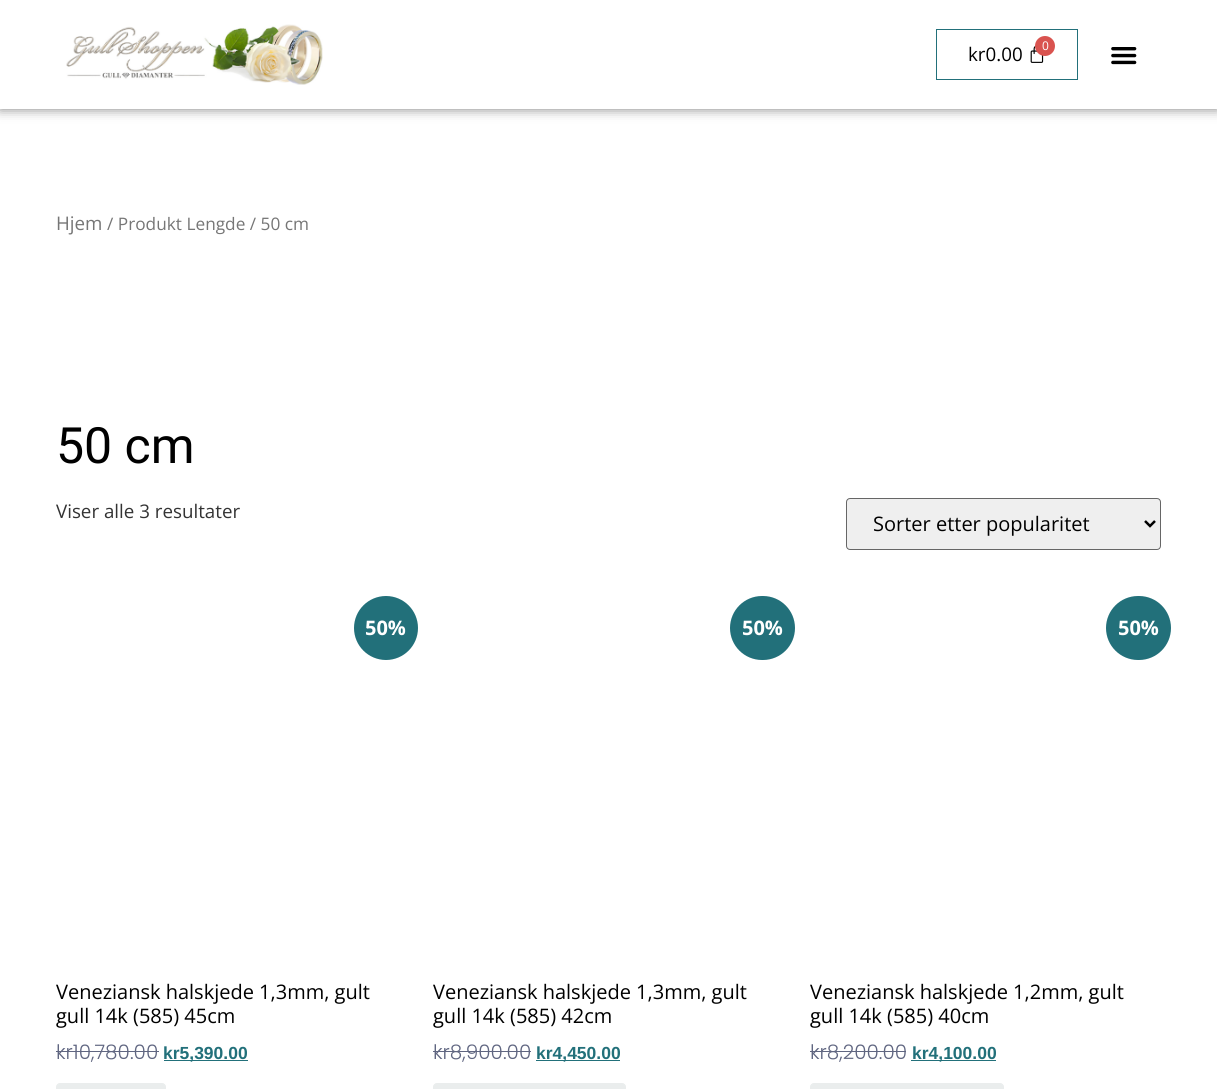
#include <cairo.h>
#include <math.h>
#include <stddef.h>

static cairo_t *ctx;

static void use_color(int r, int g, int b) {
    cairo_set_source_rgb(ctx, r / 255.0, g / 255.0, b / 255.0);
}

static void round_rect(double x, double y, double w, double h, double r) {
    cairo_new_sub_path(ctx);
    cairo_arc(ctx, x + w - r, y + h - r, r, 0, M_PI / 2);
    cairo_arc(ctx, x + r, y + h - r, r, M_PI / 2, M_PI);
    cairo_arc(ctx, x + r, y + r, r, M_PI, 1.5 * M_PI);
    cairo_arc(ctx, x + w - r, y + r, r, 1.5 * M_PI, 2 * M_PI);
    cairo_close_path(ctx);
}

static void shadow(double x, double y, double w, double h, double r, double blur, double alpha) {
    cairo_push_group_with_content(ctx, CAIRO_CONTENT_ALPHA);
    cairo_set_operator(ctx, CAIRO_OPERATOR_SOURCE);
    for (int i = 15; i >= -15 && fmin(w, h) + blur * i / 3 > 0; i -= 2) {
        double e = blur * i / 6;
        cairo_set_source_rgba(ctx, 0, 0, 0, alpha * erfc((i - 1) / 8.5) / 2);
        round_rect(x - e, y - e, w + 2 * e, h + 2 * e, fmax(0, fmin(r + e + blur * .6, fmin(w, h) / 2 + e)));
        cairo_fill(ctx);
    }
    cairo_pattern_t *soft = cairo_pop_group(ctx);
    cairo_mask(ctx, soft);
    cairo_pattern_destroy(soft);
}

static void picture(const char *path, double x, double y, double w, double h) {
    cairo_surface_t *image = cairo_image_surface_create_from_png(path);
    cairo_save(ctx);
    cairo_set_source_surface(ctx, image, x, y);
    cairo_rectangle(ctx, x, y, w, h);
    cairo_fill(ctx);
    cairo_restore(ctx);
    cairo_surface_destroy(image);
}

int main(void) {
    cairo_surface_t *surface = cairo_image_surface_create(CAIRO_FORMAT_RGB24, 1217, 1089);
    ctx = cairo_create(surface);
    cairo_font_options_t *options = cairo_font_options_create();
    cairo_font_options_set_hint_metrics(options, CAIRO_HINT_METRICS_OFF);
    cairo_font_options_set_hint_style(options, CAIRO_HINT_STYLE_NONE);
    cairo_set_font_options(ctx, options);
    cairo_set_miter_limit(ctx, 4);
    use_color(255, 255, 255);
    cairo_paint(ctx);
    use_color(0, 0, 0);
    shadow(0, 0, 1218, 109, 0, 6, 0.5);
    use_color(255, 255, 255);
    cairo_rectangle(ctx, 0, 0, 1217, 109);
    cairo_fill(ctx);
    picture("img1.png", 66, 24, 257, 61);
    cairo_rectangle(ctx, 936.5, 29.5, 141, 50);
    use_color(34, 112, 122);
    cairo_set_line_width(ctx, 1);
    cairo_stroke(ctx);
    cairo_select_font_face(ctx, "Open Sans", CAIRO_FONT_SLANT_NORMAL, CAIRO_FONT_WEIGHT_NORMAL);
    cairo_set_font_size(ctx, 18.75);
    use_color(0, 0, 0);
    cairo_move_to(ctx, 968, 61);
    cairo_show_text(ctx, "kr0.00");
    picture("img2.png", 1030, 45, 14, 18);
    use_color(217, 83, 79);
    cairo_arc(ctx, 1045, 46, 10, 0, 2 * M_PI);
    cairo_fill(ctx);
    cairo_set_font_size(ctx, 12);
    use_color(255, 255, 255);
    cairo_move_to(ctx, 1042, 50);
    cairo_show_text(ctx, "0");
    picture("img3.png", 1111, 47, 26, 18);
    cairo_set_font_size(ctx, 18.75);
    use_color(118, 118, 118);
    cairo_move_to(ctx, 56, 230);
    cairo_show_text(ctx, "Hjem");
    cairo_set_font_size(ctx, 17.25);
    cairo_move_to(ctx, 107, 230);
    cairo_show_text(ctx, "/ Produkt Lengde / 50 cm");
    cairo_select_font_face(ctx, "Roboto", CAIRO_FONT_SLANT_NORMAL, CAIRO_FONT_WEIGHT_NORMAL);
    cairo_set_font_size(ctx, 50);
    use_color(0, 0, 0);
    cairo_move_to(ctx, 56, 463);
    cairo_show_text(ctx, "50 cm");
    cairo_select_font_face(ctx, "Open Sans", CAIRO_FONT_SLANT_NORMAL, CAIRO_FONT_WEIGHT_NORMAL);
    cairo_set_font_size(ctx, 18.75);
    use_color(51, 51, 51);
    cairo_move_to(ctx, 56, 518);
    cairo_show_text(ctx, "Viser alle 3 resultater");
    use_color(239, 239, 239);
    round_rect(846.5, 498.5, 314, 51, 3.5);
    cairo_fill_preserve(ctx);
    use_color(102, 102, 102);
    cairo_stroke(ctx);
    cairo_new_path(ctx);
    cairo_move_to(ctx, 1145, 521);
    cairo_line_to(ctx, 1150, 526);
    cairo_line_to(ctx, 1155, 521);
    use_color(0, 0, 0);
    cairo_set_line_width(ctx, 2.5);
    cairo_stroke(ctx);
    cairo_set_font_size(ctx, 20);
    cairo_move_to(ctx, 873, 531);
    cairo_show_text(ctx, "Sorter etter popularitet");
    use_color(34, 112, 122);
    cairo_new_path(ctx);
    cairo_arc(ctx, 386, 628, 32, 0, 2 * M_PI);
    cairo_fill(ctx);
    cairo_select_font_face(ctx, "Open Sans", CAIRO_FONT_SLANT_NORMAL, CAIRO_FONT_WEIGHT_BOLD);
    use_color(255, 255, 255);
    cairo_move_to(ctx, 365, 635);
    cairo_show_text(ctx, "50%");
    cairo_select_font_face(ctx, "Open Sans", CAIRO_FONT_SLANT_NORMAL, CAIRO_FONT_WEIGHT_NORMAL);
    use_color(0, 0, 0);
    cairo_move_to(ctx, 56, 999);
    cairo_show_text(ctx, "Veneziansk halskjede 1,3mm, gult");
    cairo_move_to(ctx, 56, 1023);
    cairo_show_text(ctx, "gull 14k (585) 45cm");
    cairo_select_font_face(ctx, "Poppins Light", CAIRO_FONT_SLANT_NORMAL, CAIRO_FONT_WEIGHT_NORMAL);
    use_color(96, 102, 129);
    cairo_move_to(ctx, 56, 1059);
    cairo_show_text(ctx, "kr10,780.00");
    cairo_rectangle(ctx, 56, 1051, 103, 1);
    cairo_fill(ctx);
    use_color(34, 112, 122);
    cairo_rectangle(ctx, 164, 1060, 84, 1);
    cairo_fill(ctx);
    cairo_select_font_face(ctx, "Liberation Sans", CAIRO_FONT_SLANT_NORMAL, CAIRO_FONT_WEIGHT_BOLD);
    cairo_set_font_size(ctx, 17.5);
    cairo_move_to(ctx, 163, 1059);
    cairo_show_text(ctx, "kr5,390.00");
    use_color(234, 237, 237);
    round_rect(56.5, 1083.5, 109, 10, 3.5);
    cairo_fill_preserve(ctx);
    cairo_set_line_width(ctx, 1);
    cairo_stroke(ctx);
    use_color(34, 112, 122);
    round_rect(730, 596, 65, 64, 32);
    cairo_fill(ctx);
    cairo_select_font_face(ctx, "Open Sans", CAIRO_FONT_SLANT_NORMAL, CAIRO_FONT_WEIGHT_BOLD);
    cairo_set_font_size(ctx, 20);
    use_color(255, 255, 255);
    cairo_move_to(ctx, 742, 635);
    cairo_show_text(ctx, "50%");
    cairo_select_font_face(ctx, "Open Sans", CAIRO_FONT_SLANT_NORMAL, CAIRO_FONT_WEIGHT_NORMAL);
    use_color(0, 0, 0);
    cairo_move_to(ctx, 433, 999);
    cairo_show_text(ctx, "Veneziansk halskjede 1,3mm, gult");
    cairo_move_to(ctx, 433, 1023);
    cairo_show_text(ctx, "gull 14k (585) 42cm");
    cairo_select_font_face(ctx, "Poppins Light", CAIRO_FONT_SLANT_NORMAL, CAIRO_FONT_WEIGHT_NORMAL);
    use_color(96, 102, 129);
    cairo_move_to(ctx, 433, 1059);
    cairo_show_text(ctx, "kr8,900.00");
    cairo_rectangle(ctx, 433, 1051, 98, 1);
    cairo_fill(ctx);
    use_color(34, 112, 122);
    cairo_rectangle(ctx, 536, 1060, 84, 1);
    cairo_fill(ctx);
    cairo_select_font_face(ctx, "Liberation Sans", CAIRO_FONT_SLANT_NORMAL, CAIRO_FONT_WEIGHT_BOLD);
    cairo_set_font_size(ctx, 17.5);
    cairo_move_to(ctx, 536, 1059);
    cairo_show_text(ctx, "kr4,450.00");
    use_color(234, 237, 237);
    round_rect(433.5, 1083.5, 192, 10, 3.5);
    cairo_fill_preserve(ctx);
    cairo_stroke(ctx);
    use_color(34, 112, 122);
    round_rect(1106, 596, 65, 64, 32);
    cairo_fill(ctx);
    cairo_select_font_face(ctx, "Open Sans", CAIRO_FONT_SLANT_NORMAL, CAIRO_FONT_WEIGHT_BOLD);
    cairo_set_font_size(ctx, 20);
    use_color(255, 255, 255);
    cairo_move_to(ctx, 1118, 635);
    cairo_show_text(ctx, "50%");
    cairo_select_font_face(ctx, "Open Sans", CAIRO_FONT_SLANT_NORMAL, CAIRO_FONT_WEIGHT_NORMAL);
    use_color(0, 0, 0);
    cairo_move_to(ctx, 810, 999);
    cairo_show_text(ctx, "Veneziansk halskjede 1,2mm, gult");
    cairo_move_to(ctx, 810, 1023);
    cairo_show_text(ctx, "gull 14k (585) 40cm");
    cairo_select_font_face(ctx, "Poppins Light", CAIRO_FONT_SLANT_NORMAL, CAIRO_FONT_WEIGHT_NORMAL);
    use_color(96, 102, 129);
    cairo_move_to(ctx, 810, 1059);
    cairo_show_text(ctx, "kr8,200.00");
    cairo_rectangle(ctx, 810, 1051, 96, 1);
    cairo_fill(ctx);
    use_color(34, 112, 122);
    cairo_rectangle(ctx, 911, 1060, 85, 1);
    cairo_fill(ctx);
    cairo_select_font_face(ctx, "Liberation Sans", CAIRO_FONT_SLANT_NORMAL, CAIRO_FONT_WEIGHT_BOLD);
    cairo_set_font_size(ctx, 17.5);
    cairo_move_to(ctx, 912, 1059);
    cairo_show_text(ctx, "kr4,100.00");
    use_color(234, 237, 237);
    round_rect(810.5, 1083.5, 193, 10, 3.5);
    cairo_fill_preserve(ctx);
    cairo_stroke(ctx);
    cairo_surface_write_to_png(surface, "result.png");
    cairo_font_options_destroy(options);
    cairo_destroy(ctx);
    cairo_surface_destroy(surface);
    return 0;
}
